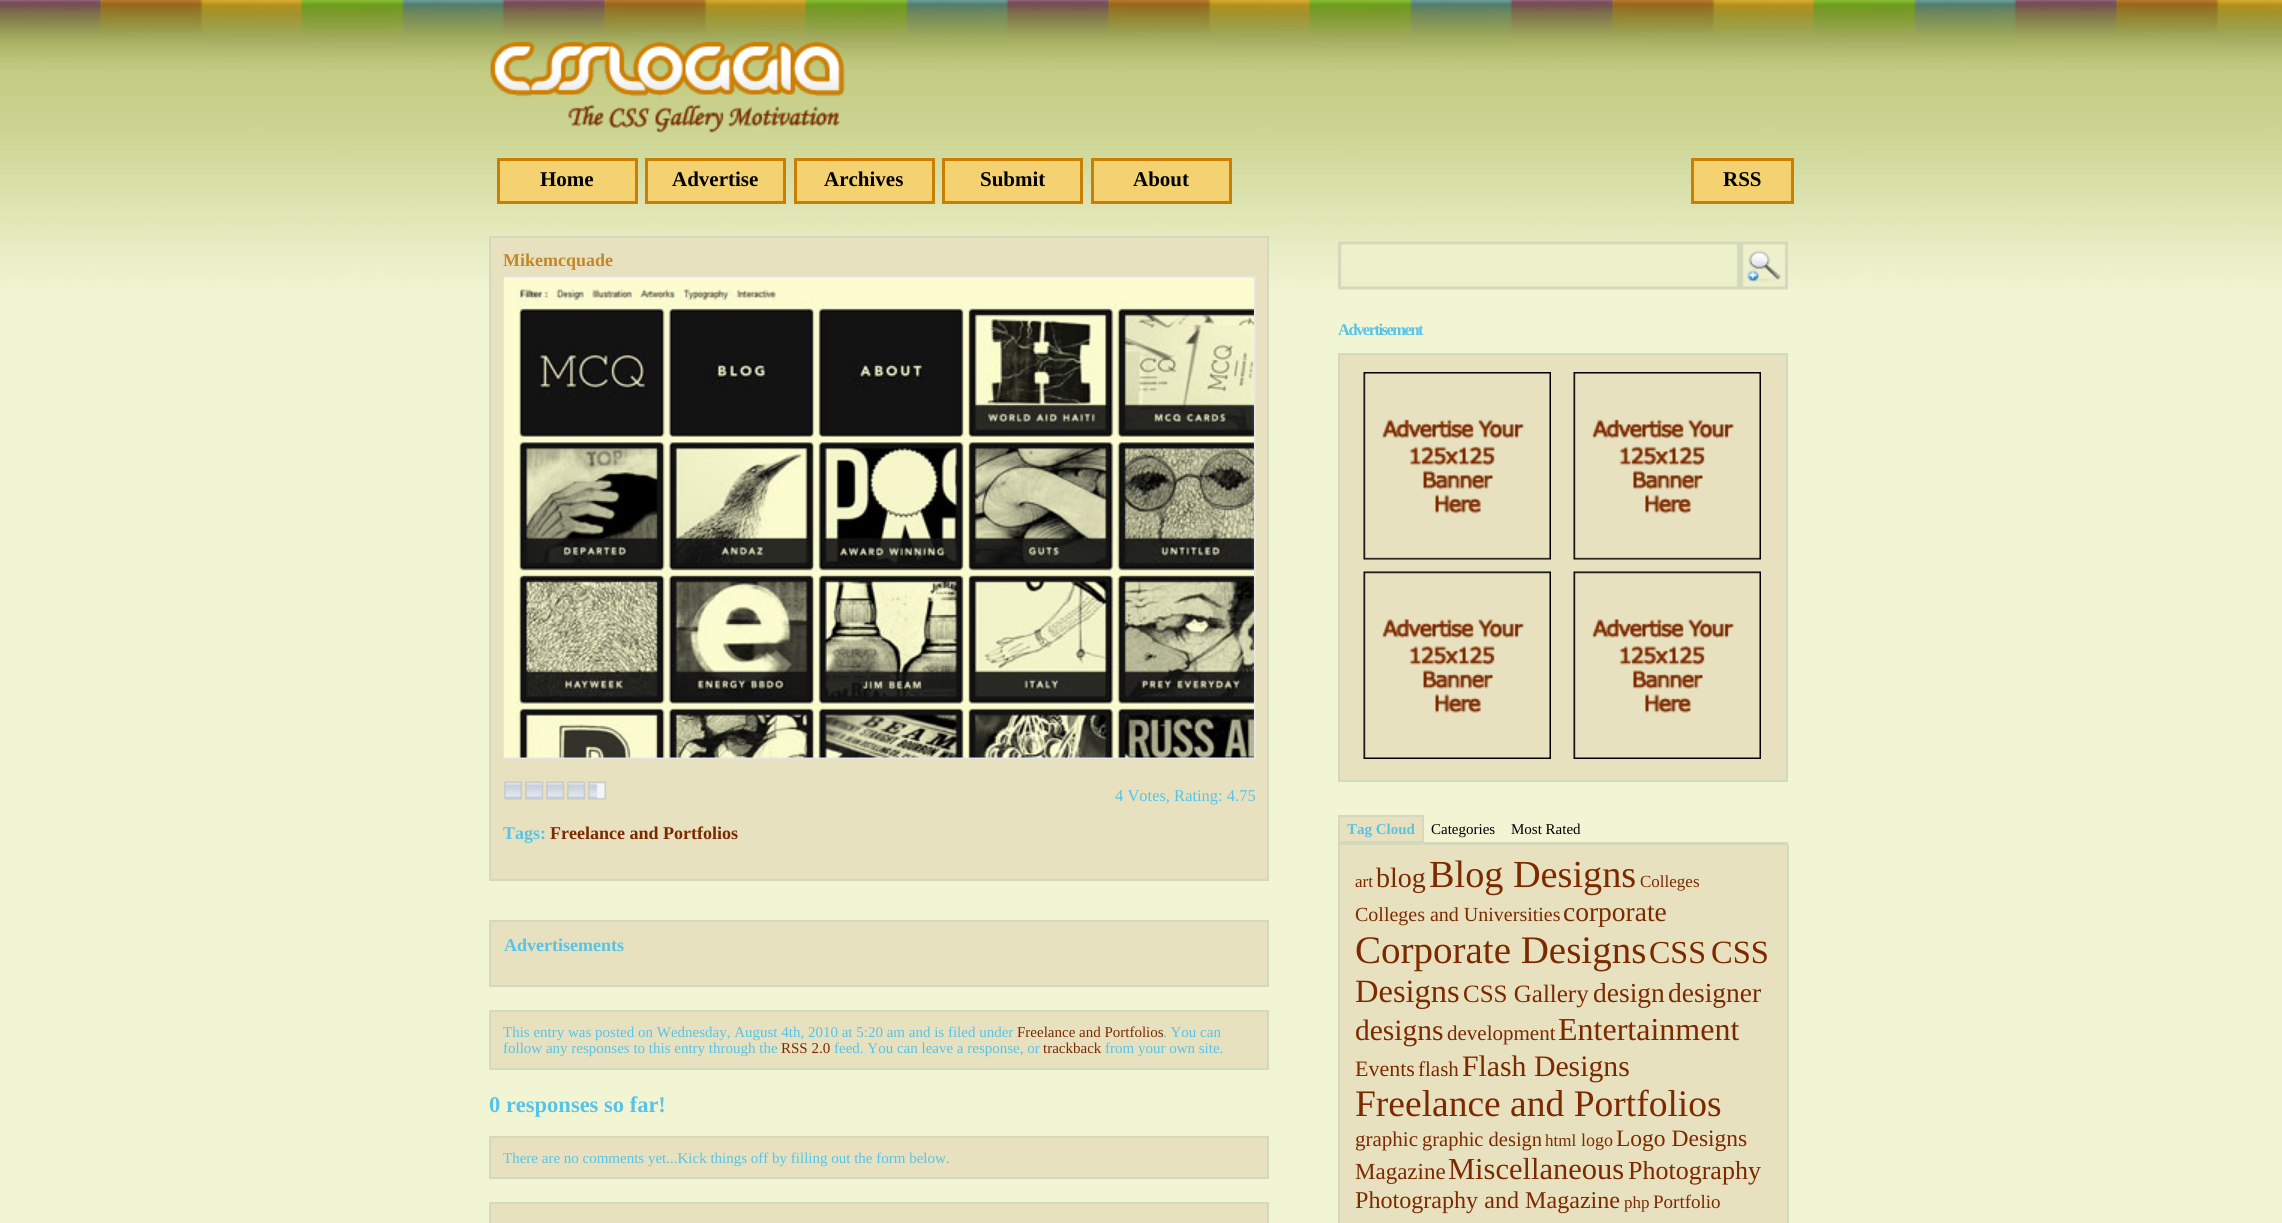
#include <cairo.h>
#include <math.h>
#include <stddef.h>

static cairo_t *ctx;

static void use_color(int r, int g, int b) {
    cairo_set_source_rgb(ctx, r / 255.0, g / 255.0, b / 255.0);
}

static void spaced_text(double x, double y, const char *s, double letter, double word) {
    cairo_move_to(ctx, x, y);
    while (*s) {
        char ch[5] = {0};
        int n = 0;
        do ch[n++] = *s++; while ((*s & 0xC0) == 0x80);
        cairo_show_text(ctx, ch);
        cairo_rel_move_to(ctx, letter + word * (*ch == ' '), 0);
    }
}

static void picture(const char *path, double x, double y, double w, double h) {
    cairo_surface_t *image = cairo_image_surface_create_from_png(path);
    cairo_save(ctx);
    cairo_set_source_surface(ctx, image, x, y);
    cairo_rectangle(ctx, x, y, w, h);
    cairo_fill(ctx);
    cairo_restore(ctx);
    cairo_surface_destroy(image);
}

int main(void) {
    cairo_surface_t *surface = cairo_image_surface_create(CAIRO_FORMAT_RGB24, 2282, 1223);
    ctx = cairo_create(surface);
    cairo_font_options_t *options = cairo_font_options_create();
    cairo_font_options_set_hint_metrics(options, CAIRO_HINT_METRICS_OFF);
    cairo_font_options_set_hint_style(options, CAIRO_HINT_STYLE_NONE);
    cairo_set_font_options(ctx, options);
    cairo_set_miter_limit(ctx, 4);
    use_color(241, 245, 212);
    cairo_paint(ctx);
    picture("img1.png", 0, 0, 2282, 288);
    picture("img2.png", 490, 41, 355, 92);
    use_color(244, 210, 113);
    cairo_rectangle(ctx, 498.5, 159.5, 138, 43);
    cairo_fill_preserve(ctx);
    use_color(202, 127, 2);
    cairo_set_line_width(ctx, 3);
    cairo_stroke(ctx);
    cairo_select_font_face(ctx, "Liberation Serif", CAIRO_FONT_SLANT_NORMAL, CAIRO_FONT_WEIGHT_BOLD);
    cairo_set_font_size(ctx, 21);
    use_color(0, 0, 0);
    cairo_move_to(ctx, 540, 186);
    cairo_show_text(ctx, "Home");
    use_color(244, 210, 113);
    cairo_rectangle(ctx, 646.5, 159.5, 138, 43);
    cairo_fill_preserve(ctx);
    use_color(202, 127, 2);
    cairo_stroke(ctx);
    use_color(0, 0, 0);
    cairo_move_to(ctx, 672, 186);
    cairo_show_text(ctx, "Advertise");
    use_color(244, 210, 113);
    cairo_rectangle(ctx, 795.5, 159.5, 138, 43);
    cairo_fill_preserve(ctx);
    use_color(202, 127, 2);
    cairo_stroke(ctx);
    use_color(0, 0, 0);
    cairo_move_to(ctx, 824, 186);
    cairo_show_text(ctx, "Archives");
    use_color(244, 210, 113);
    cairo_rectangle(ctx, 943.5, 159.5, 138, 43);
    cairo_fill_preserve(ctx);
    use_color(202, 127, 2);
    cairo_stroke(ctx);
    use_color(0, 0, 0);
    cairo_move_to(ctx, 980, 186);
    cairo_show_text(ctx, "Submit");
    use_color(244, 210, 113);
    cairo_rectangle(ctx, 1092.5, 159.5, 138, 43);
    cairo_fill_preserve(ctx);
    use_color(202, 127, 2);
    cairo_stroke(ctx);
    use_color(0, 0, 0);
    cairo_move_to(ctx, 1133, 186);
    cairo_show_text(ctx, "About");
    use_color(244, 210, 113);
    cairo_rectangle(ctx, 1692.5, 159.5, 100, 43);
    cairo_fill_preserve(ctx);
    use_color(202, 127, 2);
    cairo_stroke(ctx);
    use_color(0, 0, 0);
    cairo_move_to(ctx, 1723, 186);
    cairo_show_text(ctx, "RSS");
    use_color(231, 225, 191);
    cairo_rectangle(ctx, 490, 237, 778, 643);
    cairo_fill_preserve(ctx);
    use_color(213, 217, 188);
    cairo_set_line_width(ctx, 2);
    cairo_stroke(ctx);
    cairo_set_font_size(ctx, 18);
    use_color(195, 135, 41);
    cairo_move_to(ctx, 503, 266);
    cairo_show_text(ctx, "Mikemcquade");
    cairo_rectangle(ctx, 504, 277, 751, 481);
    use_color(229, 229, 229);
    cairo_stroke(ctx);
    picture("img3.png", 504, 277, 750, 481);
    picture("img4.png", 504, 781, 19, 19);
    picture("img5.png", 525, 781, 19, 19);
    picture("img5.png", 546, 781, 19, 19);
    picture("img5.png", 567, 781, 19, 19);
    picture("img6.png", 588, 781, 19, 19);
    cairo_select_font_face(ctx, "Liberation Serif", CAIRO_FONT_SLANT_NORMAL, CAIRO_FONT_WEIGHT_NORMAL);
    cairo_set_font_size(ctx, 16.5);
    use_color(87, 195, 231);
    cairo_move_to(ctx, 1115, 801);
    cairo_show_text(ctx, "4 Votes, Rating: 4.75");
    cairo_select_font_face(ctx, "Liberation Serif", CAIRO_FONT_SLANT_NORMAL, CAIRO_FONT_WEIGHT_BOLD);
    cairo_set_font_size(ctx, 18);
    cairo_move_to(ctx, 503, 839);
    cairo_show_text(ctx, "Tags:");
    use_color(124, 41, 0);
    cairo_move_to(ctx, 550, 839);
    cairo_show_text(ctx, "Freelance and Portfolios");
    use_color(231, 225, 191);
    cairo_rectangle(ctx, 490, 921, 778, 65);
    cairo_fill_preserve(ctx);
    use_color(213, 217, 188);
    cairo_stroke(ctx);
    use_color(87, 195, 231);
    cairo_move_to(ctx, 504, 951);
    cairo_show_text(ctx, "Advertisements");
    use_color(231, 225, 191);
    cairo_rectangle(ctx, 490, 1011, 778, 58);
    cairo_fill_preserve(ctx);
    use_color(213, 217, 188);
    cairo_stroke(ctx);
    cairo_select_font_face(ctx, "Liberation Serif", CAIRO_FONT_SLANT_NORMAL, CAIRO_FONT_WEIGHT_NORMAL);
    cairo_set_font_size(ctx, 15);
    use_color(87, 195, 231);
    cairo_move_to(ctx, 503, 1037);
    cairo_show_text(ctx, "This entry was posted on Wednesday, August 4th, 2010 at 5:20 am and is filed under");
    use_color(124, 41, 0);
    cairo_move_to(ctx, 1017, 1037);
    cairo_show_text(ctx, "Freelance and Portfolios");
    use_color(87, 195, 231);
    cairo_move_to(ctx, 1163, 1037);
    cairo_show_text(ctx, ". You can");
    cairo_move_to(ctx, 503, 1053);
    cairo_show_text(ctx, "follow any responses to this entry through the");
    use_color(124, 41, 0);
    cairo_move_to(ctx, 781, 1053);
    cairo_show_text(ctx, "RSS 2.0");
    use_color(87, 195, 231);
    cairo_move_to(ctx, 834, 1053);
    cairo_show_text(ctx, "feed. You can leave a response, or");
    use_color(124, 41, 0);
    cairo_move_to(ctx, 1043, 1053);
    cairo_show_text(ctx, "trackback");
    use_color(87, 195, 231);
    cairo_move_to(ctx, 1105, 1053);
    cairo_show_text(ctx, "from your own site.");
    cairo_select_font_face(ctx, "Liberation Serif", CAIRO_FONT_SLANT_NORMAL, CAIRO_FONT_WEIGHT_BOLD);
    cairo_set_font_size(ctx, 22.5);
    cairo_move_to(ctx, 489, 1112);
    cairo_show_text(ctx, "0 responses so far!");
    use_color(231, 225, 191);
    cairo_rectangle(ctx, 490, 1137, 778, 41);
    cairo_fill_preserve(ctx);
    use_color(213, 217, 188);
    cairo_stroke(ctx);
    cairo_select_font_face(ctx, "Liberation Serif", CAIRO_FONT_SLANT_NORMAL, CAIRO_FONT_WEIGHT_NORMAL);
    cairo_set_font_size(ctx, 15);
    use_color(87, 195, 231);
    cairo_move_to(ctx, 503, 1163);
    cairo_show_text(ctx, "There are no comments yet...Kick things off by filling out the form below.");
    use_color(231, 225, 191);
    cairo_rectangle(ctx, 490, 1203, 778, 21);
    cairo_fill_preserve(ctx);
    use_color(213, 217, 188);
    cairo_stroke(ctx);
    picture("img7.png", 1338, 241, 402, 49);
    picture("img8.png", 1740, 241, 48, 49);
    cairo_select_font_face(ctx, "Liberation Serif", CAIRO_FONT_SLANT_NORMAL, CAIRO_FONT_WEIGHT_BOLD);
    cairo_set_font_size(ctx, 16.5);
    use_color(87, 195, 231);
    spaced_text(1338, 335, "Advertisement", -1.5, 0);
    use_color(231, 225, 191);
    cairo_rectangle(ctx, 1339, 354, 448, 427);
    cairo_fill_preserve(ctx);
    use_color(213, 217, 188);
    cairo_stroke(ctx);
    picture("img9.png", 1363, 372, 188, 188);
    picture("img10.png", 1573, 372, 188, 188);
    picture("img11.png", 1363, 571, 188, 188);
    picture("img12.png", 1573, 571, 188, 188);
    cairo_rectangle(ctx, 1338, 842, 450, 3);
    cairo_fill(ctx);
    use_color(231, 225, 191);
    cairo_rectangle(ctx, 1339, 816, 84, 26);
    cairo_fill_preserve(ctx);
    use_color(213, 217, 188);
    cairo_stroke(ctx);
    cairo_set_font_size(ctx, 15);
    use_color(87, 195, 231);
    cairo_move_to(ctx, 1347, 834);
    cairo_show_text(ctx, "Tag Cloud");
    cairo_select_font_face(ctx, "Liberation Serif", CAIRO_FONT_SLANT_NORMAL, CAIRO_FONT_WEIGHT_NORMAL);
    use_color(0, 0, 0);
    cairo_move_to(ctx, 1431, 834);
    cairo_show_text(ctx, "Categories");
    cairo_move_to(ctx, 1511, 834);
    cairo_show_text(ctx, "Most Rated");
    use_color(231, 225, 191);
    cairo_rectangle(ctx, 1340, 845, 447, 378);
    cairo_fill(ctx);
    use_color(213, 217, 188);
    cairo_rectangle(ctx, 1787, 845, 2, 378);
    cairo_fill(ctx);
    cairo_rectangle(ctx, 1338, 845, 2, 378);
    cairo_fill(ctx);
    cairo_set_font_size(ctx, 17);
    use_color(124, 41, 0);
    cairo_move_to(ctx, 1355, 887);
    cairo_show_text(ctx, "art");
    cairo_set_font_size(ctx, 28);
    cairo_move_to(ctx, 1376, 887);
    cairo_show_text(ctx, "blog");
    cairo_set_font_size(ctx, 38.25);
    cairo_move_to(ctx, 1429, 887);
    cairo_show_text(ctx, "Blog Designs");
    cairo_set_font_size(ctx, 17);
    cairo_move_to(ctx, 1640, 887);
    cairo_show_text(ctx, "Colleges");
    cairo_set_font_size(ctx, 20);
    cairo_move_to(ctx, 1355, 921);
    cairo_show_text(ctx, "Colleges and Universities");
    cairo_set_font_size(ctx, 27.5);
    cairo_move_to(ctx, 1563, 921);
    cairo_show_text(ctx, "corporate");
    cairo_set_font_size(ctx, 39);
    cairo_move_to(ctx, 1355, 963);
    cairo_show_text(ctx, "Corporate Designs");
    cairo_set_font_size(ctx, 32);
    cairo_move_to(ctx, 1649, 963);
    cairo_show_text(ctx, "CSS");
    cairo_set_font_size(ctx, 32.5);
    cairo_move_to(ctx, 1711, 963);
    cairo_show_text(ctx, "CSS");
    cairo_move_to(ctx, 1355, 1002);
    cairo_show_text(ctx, "Designs");
    cairo_set_font_size(ctx, 25);
    cairo_move_to(ctx, 1463, 1002);
    cairo_show_text(ctx, "CSS Gallery");
    cairo_set_font_size(ctx, 27.5);
    cairo_move_to(ctx, 1593, 1002);
    cairo_show_text(ctx, "design");
    cairo_move_to(ctx, 1668, 1002);
    cairo_show_text(ctx, "designer");
    cairo_set_font_size(ctx, 29.5);
    cairo_move_to(ctx, 1355, 1040);
    cairo_show_text(ctx, "designs");
    cairo_set_font_size(ctx, 21);
    cairo_move_to(ctx, 1447, 1040);
    cairo_show_text(ctx, "development");
    cairo_set_font_size(ctx, 32);
    cairo_move_to(ctx, 1558, 1040);
    cairo_show_text(ctx, "Entertainment");
    cairo_set_font_size(ctx, 22);
    cairo_move_to(ctx, 1355, 1076);
    cairo_show_text(ctx, "Events");
    cairo_set_font_size(ctx, 21);
    cairo_move_to(ctx, 1418, 1076);
    cairo_show_text(ctx, "flash");
    cairo_set_font_size(ctx, 29.75);
    cairo_move_to(ctx, 1462, 1076);
    cairo_show_text(ctx, "Flash Designs");
    cairo_set_font_size(ctx, 37.5);
    cairo_move_to(ctx, 1355, 1116);
    cairo_show_text(ctx, "Freelance and Portfolios");
    cairo_set_font_size(ctx, 21);
    cairo_move_to(ctx, 1355, 1146);
    cairo_show_text(ctx, "graphic");
    cairo_set_font_size(ctx, 20.5);
    cairo_move_to(ctx, 1422, 1146);
    cairo_show_text(ctx, "graphic design");
    cairo_set_font_size(ctx, 17);
    cairo_move_to(ctx, 1545, 1146);
    cairo_show_text(ctx, "html");
    cairo_set_font_size(ctx, 18);
    cairo_move_to(ctx, 1581, 1146);
    cairo_show_text(ctx, "logo");
    cairo_set_font_size(ctx, 23.5);
    cairo_move_to(ctx, 1616, 1146);
    cairo_show_text(ctx, "Logo Designs");
    cairo_set_font_size(ctx, 23);
    cairo_move_to(ctx, 1355, 1179);
    cairo_show_text(ctx, "Magazine");
    cairo_set_font_size(ctx, 30.5);
    cairo_move_to(ctx, 1448, 1179);
    cairo_show_text(ctx, "Miscellaneous");
    cairo_set_font_size(ctx, 26);
    cairo_move_to(ctx, 1628, 1179);
    cairo_show_text(ctx, "Photography");
    cairo_set_font_size(ctx, 24.1);
    cairo_move_to(ctx, 1355, 1208);
    cairo_show_text(ctx, "Photography and Magazine");
    cairo_set_font_size(ctx, 17);
    cairo_move_to(ctx, 1624, 1208);
    cairo_show_text(ctx, "php");
    cairo_set_font_size(ctx, 19);
    cairo_move_to(ctx, 1653, 1208);
    cairo_show_text(ctx, "Portfolio");
    cairo_surface_write_to_png(surface, "result.png");
    cairo_font_options_destroy(options);
    cairo_destroy(ctx);
    cairo_surface_destroy(surface);
    return 0;
}
